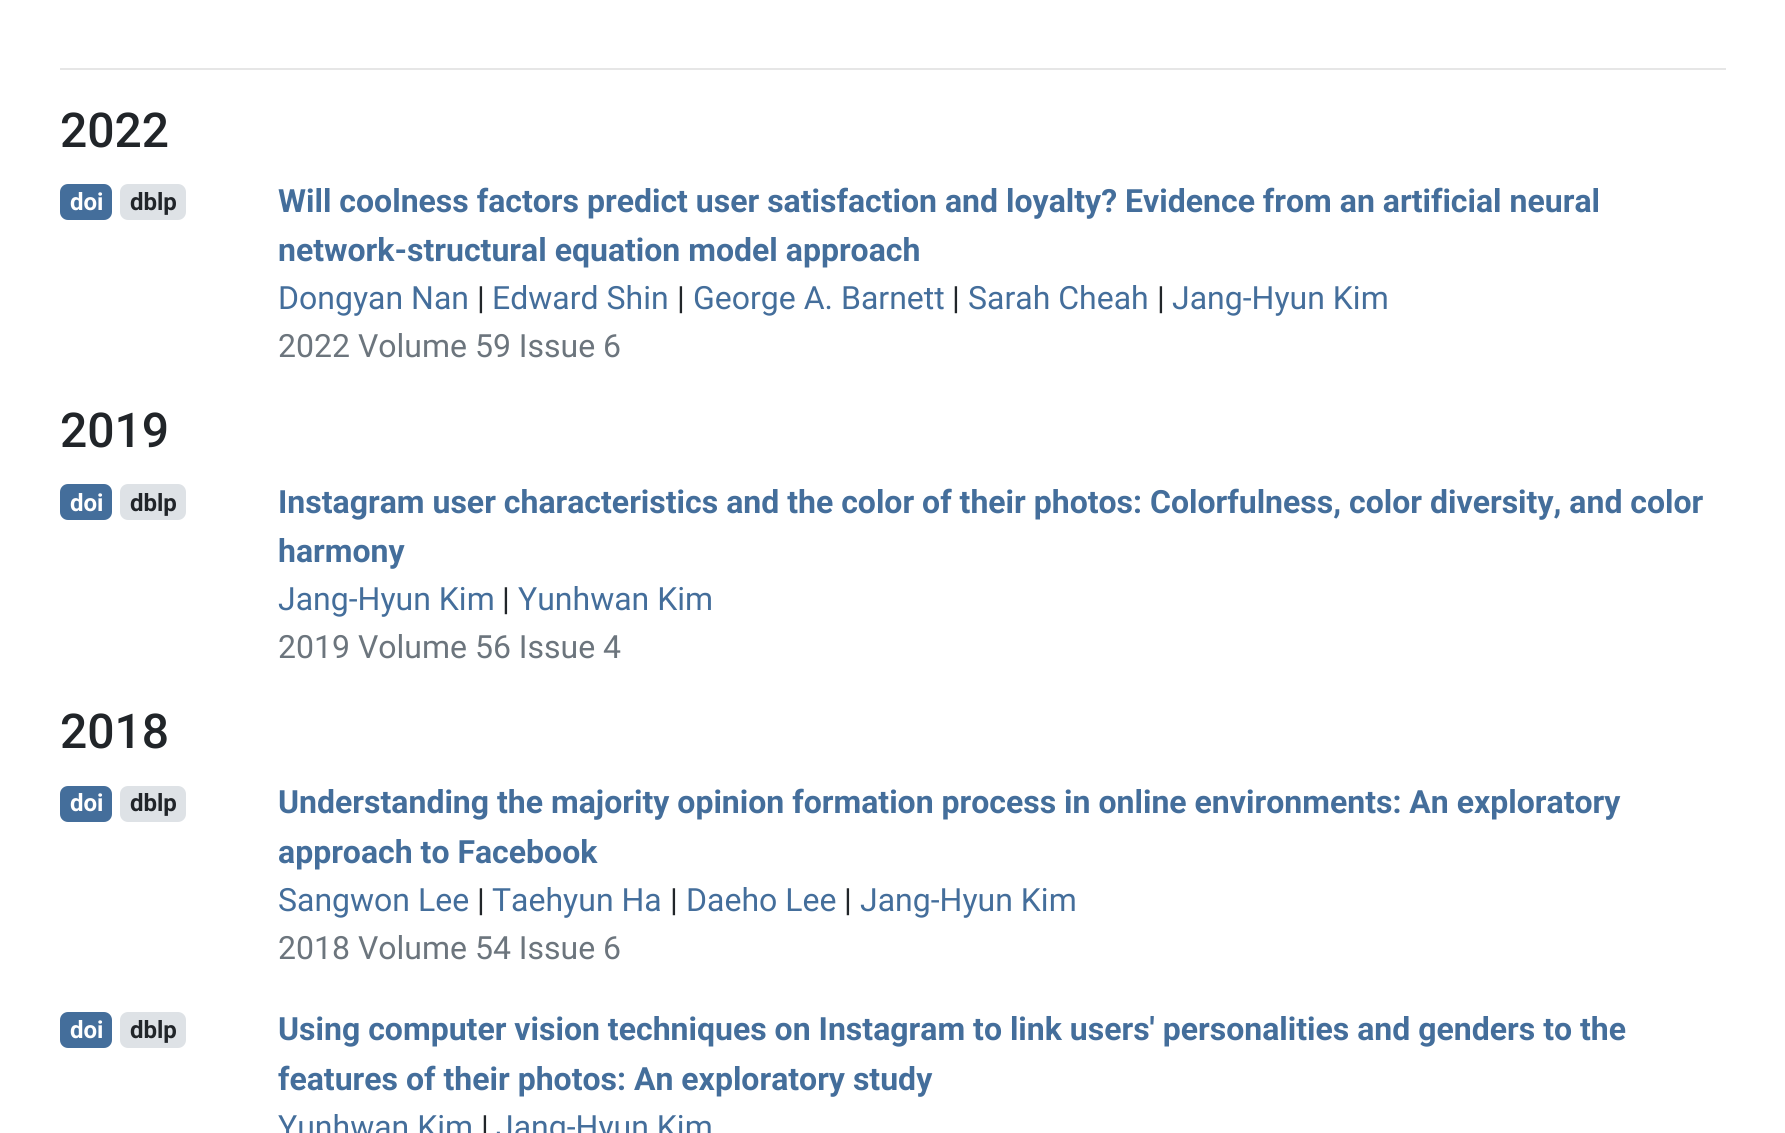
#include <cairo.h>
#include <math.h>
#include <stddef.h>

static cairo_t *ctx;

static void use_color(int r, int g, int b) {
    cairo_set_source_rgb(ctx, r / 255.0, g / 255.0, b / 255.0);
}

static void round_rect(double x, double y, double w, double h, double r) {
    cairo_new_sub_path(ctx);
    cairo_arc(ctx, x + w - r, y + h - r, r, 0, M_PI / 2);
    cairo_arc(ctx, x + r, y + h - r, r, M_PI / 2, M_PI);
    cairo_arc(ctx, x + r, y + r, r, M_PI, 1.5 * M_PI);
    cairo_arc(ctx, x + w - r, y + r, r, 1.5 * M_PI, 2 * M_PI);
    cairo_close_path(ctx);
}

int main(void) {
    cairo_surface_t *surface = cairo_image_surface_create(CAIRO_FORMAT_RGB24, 1785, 1133);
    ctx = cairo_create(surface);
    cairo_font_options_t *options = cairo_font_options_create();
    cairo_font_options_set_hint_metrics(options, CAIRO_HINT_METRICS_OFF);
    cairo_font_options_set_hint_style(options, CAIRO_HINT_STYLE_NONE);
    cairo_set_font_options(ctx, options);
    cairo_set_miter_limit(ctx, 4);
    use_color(255, 255, 255);
    cairo_paint(ctx);
    use_color(230, 230, 230);
    cairo_rectangle(ctx, 60, 68, 1666, 2);
    cairo_fill(ctx);
    cairo_select_font_face(ctx, "Roboto Medium", CAIRO_FONT_SLANT_NORMAL, CAIRO_FONT_WEIGHT_NORMAL);
    cairo_set_font_size(ctx, 48);
    use_color(33, 37, 41);
    cairo_move_to(ctx, 60, 147);
    cairo_show_text(ctx, "2022");
    use_color(68, 110, 155);
    round_rect(60, 184, 52, 36, 8);
    cairo_fill(ctx);
    cairo_select_font_face(ctx, "Roboto", CAIRO_FONT_SLANT_NORMAL, CAIRO_FONT_WEIGHT_BOLD);
    cairo_set_font_size(ctx, 24);
    use_color(255, 255, 255);
    cairo_move_to(ctx, 70, 210);
    cairo_show_text(ctx, "doi");
    use_color(222, 226, 230);
    round_rect(120, 184, 66, 36, 8);
    cairo_fill(ctx);
    use_color(33, 37, 41);
    cairo_move_to(ctx, 130, 210);
    cairo_show_text(ctx, "dblp");
    cairo_set_font_size(ctx, 32);
    use_color(68, 110, 155);
    cairo_move_to(ctx, 278, 212);
    cairo_show_text(ctx, "Will coolness factors predict user satisfaction and loyalty? Evidence from an artificial neural");
    cairo_move_to(ctx, 278, 261);
    cairo_show_text(ctx, "network-structural equation model approach");
    cairo_select_font_face(ctx, "Roboto", CAIRO_FONT_SLANT_NORMAL, CAIRO_FONT_WEIGHT_NORMAL);
    cairo_move_to(ctx, 278, 309);
    cairo_show_text(ctx, "Dongyan Nan");
    use_color(33, 37, 41);
    cairo_move_to(ctx, 477, 309);
    cairo_show_text(ctx, "|");
    use_color(68, 110, 155);
    cairo_move_to(ctx, 492, 309);
    cairo_show_text(ctx, "Edward Shin");
    use_color(33, 37, 41);
    cairo_move_to(ctx, 677, 309);
    cairo_show_text(ctx, "|");
    use_color(68, 110, 155);
    cairo_move_to(ctx, 693, 309);
    cairo_show_text(ctx, "George A. Barnett");
    use_color(33, 37, 41);
    cairo_move_to(ctx, 952, 309);
    cairo_show_text(ctx, "|");
    use_color(68, 110, 155);
    cairo_move_to(ctx, 968, 309);
    cairo_show_text(ctx, "Sarah Cheah");
    use_color(33, 37, 41);
    cairo_move_to(ctx, 1157, 309);
    cairo_show_text(ctx, "|");
    use_color(68, 110, 155);
    cairo_move_to(ctx, 1172, 309);
    cairo_show_text(ctx, "Jang-Hyun Kim");
    use_color(108, 117, 125);
    cairo_move_to(ctx, 278, 357);
    cairo_show_text(ctx, "2022 Volume 59 Issue 6");
    cairo_select_font_face(ctx, "Roboto Medium", CAIRO_FONT_SLANT_NORMAL, CAIRO_FONT_WEIGHT_NORMAL);
    cairo_set_font_size(ctx, 48);
    use_color(33, 37, 41);
    cairo_move_to(ctx, 60, 447);
    cairo_show_text(ctx, "2019");
    use_color(68, 110, 155);
    round_rect(60, 484, 52, 36, 8);
    cairo_fill(ctx);
    cairo_select_font_face(ctx, "Roboto", CAIRO_FONT_SLANT_NORMAL, CAIRO_FONT_WEIGHT_BOLD);
    cairo_set_font_size(ctx, 24);
    use_color(255, 255, 255);
    cairo_move_to(ctx, 70, 511);
    cairo_show_text(ctx, "doi");
    use_color(222, 226, 230);
    round_rect(120, 484, 66, 36, 8);
    cairo_fill(ctx);
    use_color(33, 37, 41);
    cairo_move_to(ctx, 130, 511);
    cairo_show_text(ctx, "dblp");
    cairo_set_font_size(ctx, 32);
    use_color(68, 110, 155);
    cairo_move_to(ctx, 278, 513);
    cairo_show_text(ctx, "Instagram user characteristics and the color of their photos: Colorfulness, color diversity, and color");
    cairo_move_to(ctx, 278, 562);
    cairo_show_text(ctx, "harmony");
    cairo_select_font_face(ctx, "Roboto", CAIRO_FONT_SLANT_NORMAL, CAIRO_FONT_WEIGHT_NORMAL);
    cairo_move_to(ctx, 278, 610);
    cairo_show_text(ctx, "Jang-Hyun Kim");
    use_color(33, 37, 41);
    cairo_move_to(ctx, 502, 610);
    cairo_show_text(ctx, "|");
    use_color(68, 110, 155);
    cairo_move_to(ctx, 518, 610);
    cairo_show_text(ctx, "Yunhwan Kim");
    use_color(108, 117, 125);
    cairo_move_to(ctx, 278, 658);
    cairo_show_text(ctx, "2019 Volume 56 Issue 4");
    cairo_select_font_face(ctx, "Roboto Medium", CAIRO_FONT_SLANT_NORMAL, CAIRO_FONT_WEIGHT_NORMAL);
    cairo_set_font_size(ctx, 48);
    use_color(33, 37, 41);
    cairo_move_to(ctx, 60, 748);
    cairo_show_text(ctx, "2018");
    use_color(68, 110, 155);
    round_rect(60, 786, 52, 36, 8);
    cairo_fill(ctx);
    cairo_select_font_face(ctx, "Roboto", CAIRO_FONT_SLANT_NORMAL, CAIRO_FONT_WEIGHT_BOLD);
    cairo_set_font_size(ctx, 24);
    use_color(255, 255, 255);
    cairo_move_to(ctx, 70, 811);
    cairo_show_text(ctx, "doi");
    use_color(222, 226, 230);
    round_rect(120, 786, 66, 36, 8);
    cairo_fill(ctx);
    use_color(33, 37, 41);
    cairo_move_to(ctx, 130, 811);
    cairo_show_text(ctx, "dblp");
    cairo_set_font_size(ctx, 32);
    use_color(68, 110, 155);
    cairo_move_to(ctx, 278, 813);
    cairo_show_text(ctx, "Understanding the majority opinion formation process in online environments: An exploratory");
    cairo_move_to(ctx, 278, 863);
    cairo_show_text(ctx, "approach to Facebook");
    cairo_select_font_face(ctx, "Roboto", CAIRO_FONT_SLANT_NORMAL, CAIRO_FONT_WEIGHT_NORMAL);
    cairo_move_to(ctx, 278, 911);
    cairo_show_text(ctx, "Sangwon Lee");
    use_color(33, 37, 41);
    cairo_move_to(ctx, 477, 911);
    cairo_show_text(ctx, "|");
    use_color(68, 110, 155);
    cairo_move_to(ctx, 492, 911);
    cairo_show_text(ctx, "Taehyun Ha");
    use_color(33, 37, 41);
    cairo_move_to(ctx, 670, 911);
    cairo_show_text(ctx, "|");
    use_color(68, 110, 155);
    cairo_move_to(ctx, 686, 911);
    cairo_show_text(ctx, "Daeho Lee");
    use_color(33, 37, 41);
    cairo_move_to(ctx, 844, 911);
    cairo_show_text(ctx, "|");
    use_color(68, 110, 155);
    cairo_move_to(ctx, 860, 911);
    cairo_show_text(ctx, "Jang-Hyun Kim");
    use_color(108, 117, 125);
    cairo_move_to(ctx, 278, 959);
    cairo_show_text(ctx, "2018 Volume 54 Issue 6");
    use_color(68, 110, 155);
    round_rect(60, 1012, 52, 36, 8);
    cairo_fill(ctx);
    cairo_select_font_face(ctx, "Roboto", CAIRO_FONT_SLANT_NORMAL, CAIRO_FONT_WEIGHT_BOLD);
    cairo_set_font_size(ctx, 24);
    use_color(255, 255, 255);
    cairo_move_to(ctx, 70, 1038);
    cairo_show_text(ctx, "doi");
    use_color(222, 226, 230);
    round_rect(120, 1012, 66, 36, 8);
    cairo_fill(ctx);
    use_color(33, 37, 41);
    cairo_move_to(ctx, 130, 1038);
    cairo_show_text(ctx, "dblp");
    cairo_set_font_size(ctx, 32);
    use_color(68, 110, 155);
    cairo_move_to(ctx, 278, 1040);
    cairo_show_text(ctx, "Using computer vision techniques on Instagram to link users' personalities and genders to the");
    cairo_move_to(ctx, 278, 1090);
    cairo_show_text(ctx, "features of their photos: An exploratory study");
    cairo_select_font_face(ctx, "Roboto", CAIRO_FONT_SLANT_NORMAL, CAIRO_FONT_WEIGHT_NORMAL);
    cairo_move_to(ctx, 278, 1138);
    cairo_show_text(ctx, "Yunhwan Kim");
    use_color(33, 37, 41);
    cairo_move_to(ctx, 481, 1138);
    cairo_show_text(ctx, "|");
    use_color(68, 110, 155);
    cairo_move_to(ctx, 496, 1138);
    cairo_show_text(ctx, "Jang-Hyun Kim");
    cairo_surface_write_to_png(surface, "result.png");
    cairo_font_options_destroy(options);
    cairo_destroy(ctx);
    cairo_surface_destroy(surface);
    return 0;
}
